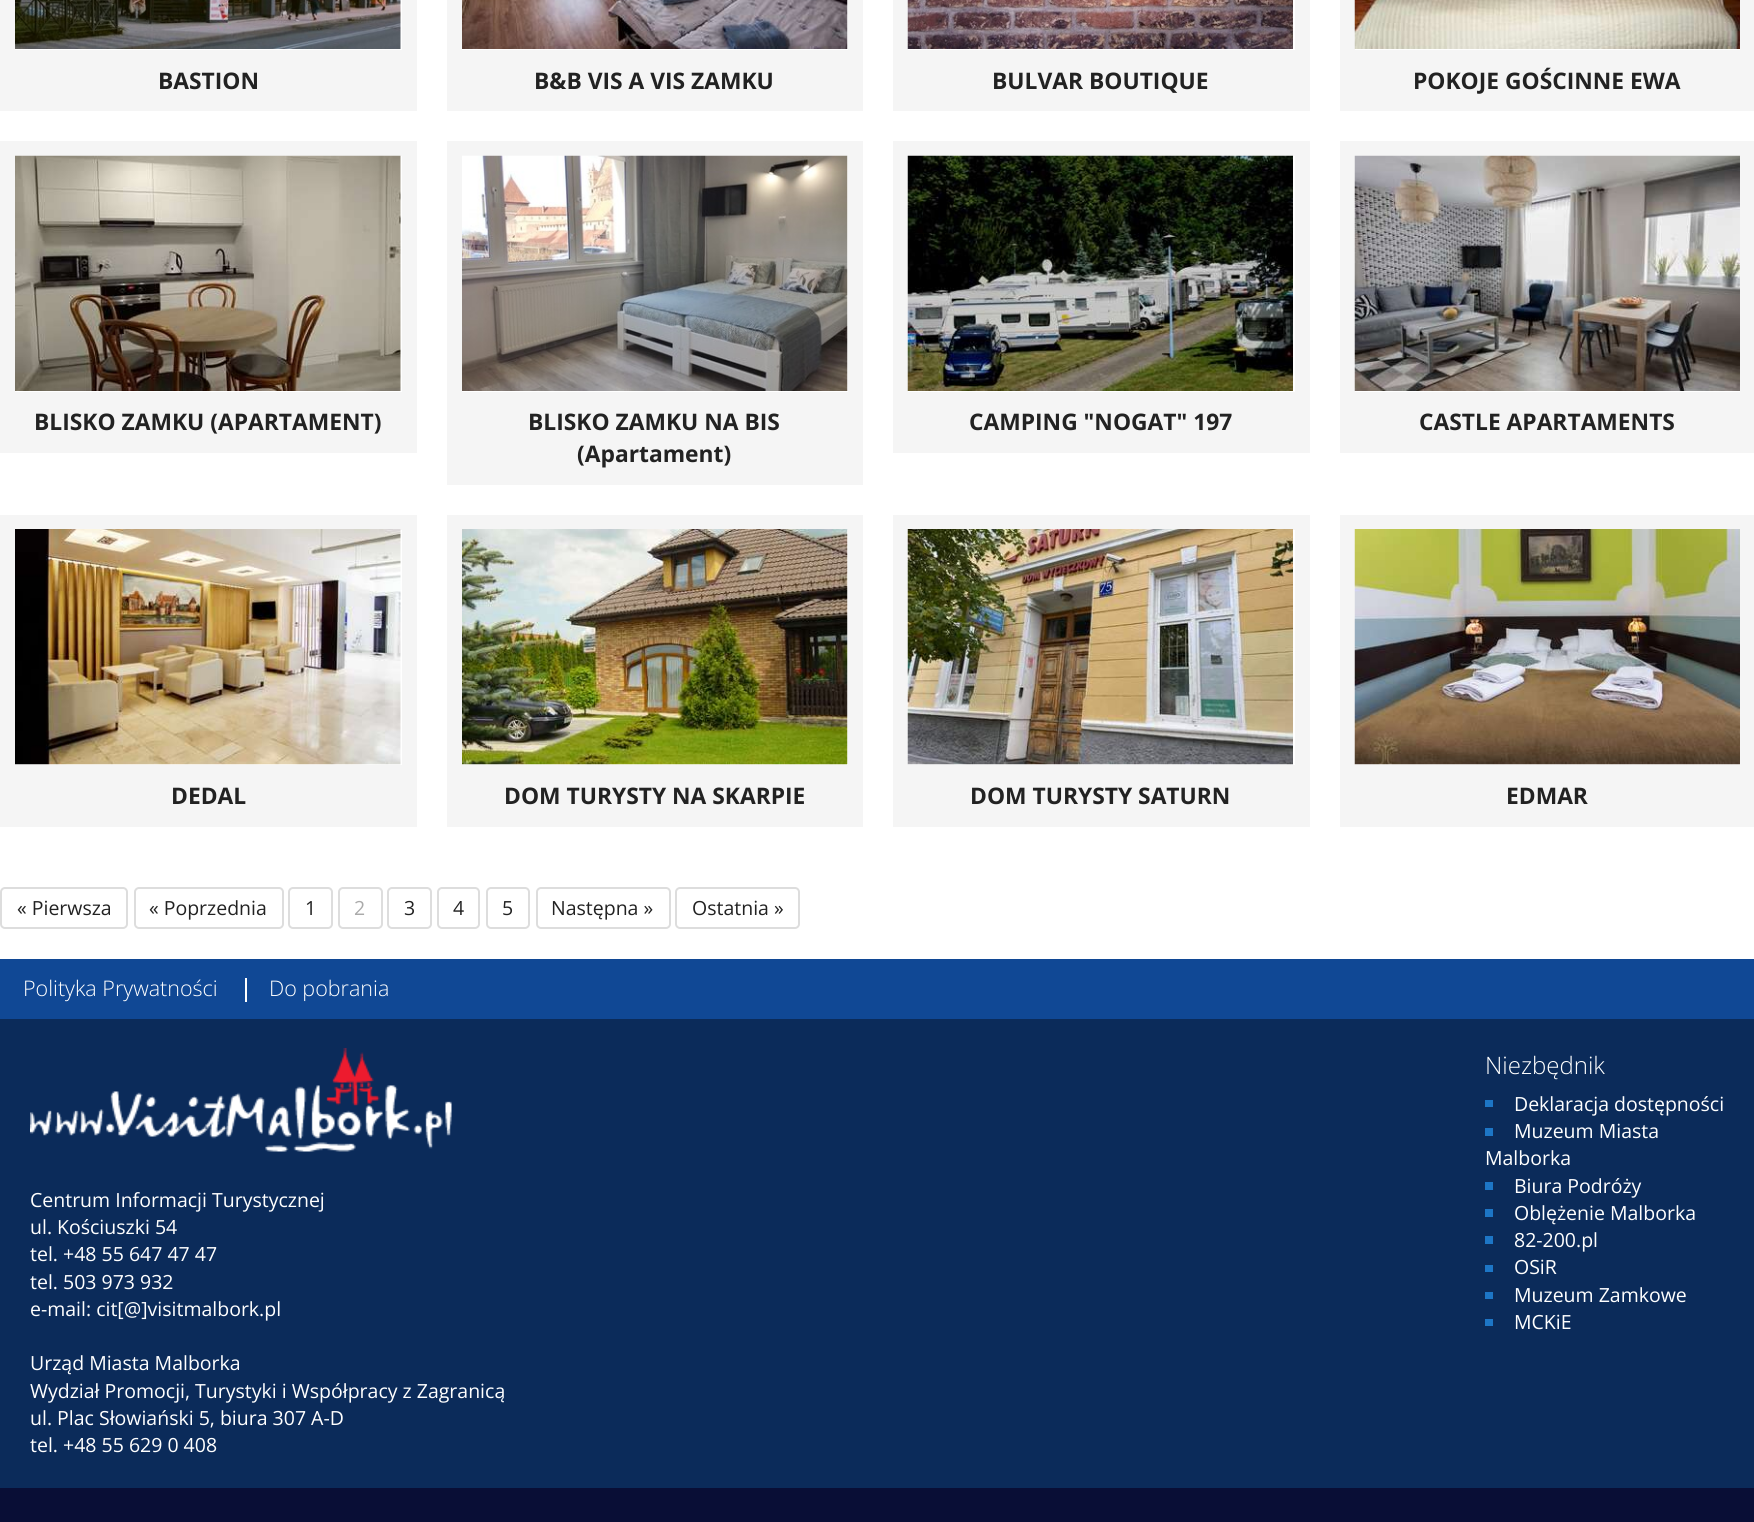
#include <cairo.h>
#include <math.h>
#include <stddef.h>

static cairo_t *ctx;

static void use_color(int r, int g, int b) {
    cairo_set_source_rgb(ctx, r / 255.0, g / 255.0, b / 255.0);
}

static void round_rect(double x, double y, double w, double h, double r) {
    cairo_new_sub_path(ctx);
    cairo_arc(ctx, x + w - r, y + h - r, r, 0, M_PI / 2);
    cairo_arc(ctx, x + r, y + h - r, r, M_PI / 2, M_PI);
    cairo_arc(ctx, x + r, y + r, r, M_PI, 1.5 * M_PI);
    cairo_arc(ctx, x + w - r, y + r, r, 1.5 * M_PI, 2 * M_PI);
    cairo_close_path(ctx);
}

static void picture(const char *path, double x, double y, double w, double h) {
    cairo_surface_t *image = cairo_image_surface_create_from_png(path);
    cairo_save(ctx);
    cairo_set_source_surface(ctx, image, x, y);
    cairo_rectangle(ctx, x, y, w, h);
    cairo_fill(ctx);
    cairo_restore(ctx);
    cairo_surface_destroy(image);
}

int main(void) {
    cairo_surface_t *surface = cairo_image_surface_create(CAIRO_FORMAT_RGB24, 1754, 1522);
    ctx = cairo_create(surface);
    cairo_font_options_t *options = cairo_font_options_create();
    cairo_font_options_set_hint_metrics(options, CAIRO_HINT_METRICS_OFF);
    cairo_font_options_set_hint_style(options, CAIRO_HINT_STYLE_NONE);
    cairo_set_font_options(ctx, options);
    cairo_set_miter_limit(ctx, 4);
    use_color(255, 255, 255);
    cairo_paint(ctx);
    cairo_rectangle(ctx, 7.5, -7.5, 402, 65);
    use_color(245, 245, 245);
    cairo_set_line_width(ctx, 15);
    cairo_stroke(ctx);
    picture("img1.png", 15, 0, 386, 49);
    cairo_rectangle(ctx, 0, 65, 417, 46);
    cairo_fill(ctx);
    cairo_select_font_face(ctx, "Open Sans", CAIRO_FONT_SLANT_NORMAL, CAIRO_FONT_WEIGHT_BOLD);
    cairo_set_font_size(ctx, 22.8);
    use_color(34, 34, 34);
    cairo_move_to(ctx, 158, 89);
    cairo_show_text(ctx, "BASTION");
    cairo_rectangle(ctx, 454.5, -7.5, 401, 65);
    use_color(245, 245, 245);
    cairo_stroke(ctx);
    picture("img2.png", 462, 0, 386, 49);
    cairo_rectangle(ctx, 447, 65, 416, 46);
    cairo_fill(ctx);
    use_color(34, 34, 34);
    cairo_move_to(ctx, 534, 89);
    cairo_show_text(ctx, "B&B VIS A VIS ZAMKU");
    cairo_rectangle(ctx, 900.5, -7.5, 402, 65);
    use_color(245, 245, 245);
    cairo_stroke(ctx);
    picture("img3.png", 907, 0, 386, 49);
    cairo_rectangle(ctx, 893, 65, 417, 46);
    cairo_fill(ctx);
    use_color(34, 34, 34);
    cairo_move_to(ctx, 992, 89);
    cairo_show_text(ctx, "BULVAR BOUTIQUE");
    cairo_rectangle(ctx, 1347.5, -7.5, 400, 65);
    use_color(245, 245, 245);
    cairo_stroke(ctx);
    picture("img4.png", 1354, 0, 386, 49);
    cairo_rectangle(ctx, 1340, 65, 414, 46);
    cairo_fill(ctx);
    use_color(34, 34, 34);
    cairo_move_to(ctx, 1413, 89);
    cairo_show_text(ctx, "POKOJE GOŚCINNE EWA");
    cairo_rectangle(ctx, 7.5, 148.5, 402, 251);
    use_color(245, 245, 245);
    cairo_stroke(ctx);
    picture("img5.png", 15, 155, 386, 236);
    cairo_rectangle(ctx, 0, 407, 417, 46);
    cairo_fill(ctx);
    use_color(34, 34, 34);
    cairo_move_to(ctx, 34, 430);
    cairo_show_text(ctx, "BLISKO ZAMKU (APARTAMENT)");
    cairo_rectangle(ctx, 454.5, 148.5, 401, 251);
    use_color(245, 245, 245);
    cairo_stroke(ctx);
    picture("img6.png", 462, 155, 386, 236);
    cairo_rectangle(ctx, 447, 407, 416, 78);
    cairo_fill(ctx);
    use_color(34, 34, 34);
    cairo_move_to(ctx, 528, 430);
    cairo_show_text(ctx, "BLISKO ZAMKU NA BIS");
    cairo_move_to(ctx, 577, 462);
    cairo_show_text(ctx, "(Apartament)");
    cairo_rectangle(ctx, 900.5, 148.5, 402, 251);
    use_color(245, 245, 245);
    cairo_stroke(ctx);
    picture("img7.png", 907, 155, 386, 236);
    cairo_rectangle(ctx, 893, 407, 417, 46);
    cairo_fill(ctx);
    use_color(34, 34, 34);
    cairo_move_to(ctx, 969, 430);
    cairo_show_text(ctx, "CAMPING \"NOGAT\" 197");
    cairo_rectangle(ctx, 1347.5, 148.5, 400, 251);
    use_color(245, 245, 245);
    cairo_stroke(ctx);
    picture("img8.png", 1354, 155, 386, 236);
    cairo_rectangle(ctx, 1340, 407, 414, 46);
    cairo_fill(ctx);
    use_color(34, 34, 34);
    cairo_move_to(ctx, 1419, 430);
    cairo_show_text(ctx, "CASTLE APARTAMENTS");
    cairo_rectangle(ctx, 7.5, 522.5, 402, 250);
    use_color(245, 245, 245);
    cairo_stroke(ctx);
    picture("img9.png", 15, 529, 386, 236);
    cairo_rectangle(ctx, 0, 780, 417, 47);
    cairo_fill(ctx);
    use_color(34, 34, 34);
    cairo_move_to(ctx, 171, 804);
    cairo_show_text(ctx, "DEDAL");
    cairo_rectangle(ctx, 454.5, 522.5, 401, 250);
    use_color(245, 245, 245);
    cairo_stroke(ctx);
    picture("img10.png", 462, 529, 386, 236);
    cairo_rectangle(ctx, 447, 780, 416, 47);
    cairo_fill(ctx);
    use_color(34, 34, 34);
    cairo_move_to(ctx, 504, 804);
    cairo_show_text(ctx, "DOM TURYSTY NA SKARPIE");
    cairo_rectangle(ctx, 900.5, 522.5, 402, 250);
    use_color(245, 245, 245);
    cairo_stroke(ctx);
    picture("img11.png", 907, 529, 386, 236);
    cairo_rectangle(ctx, 893, 780, 417, 47);
    cairo_fill(ctx);
    use_color(34, 34, 34);
    cairo_move_to(ctx, 970, 804);
    cairo_show_text(ctx, "DOM TURYSTY SATURN");
    cairo_rectangle(ctx, 1347.5, 522.5, 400, 250);
    use_color(245, 245, 245);
    cairo_stroke(ctx);
    picture("img12.png", 1354, 529, 386, 236);
    cairo_rectangle(ctx, 1340, 780, 414, 47);
    cairo_fill(ctx);
    use_color(34, 34, 34);
    cairo_move_to(ctx, 1506, 804);
    cairo_show_text(ctx, "EDMAR");
    round_rect(1, 888, 126, 40, 4);
    use_color(221, 221, 221);
    cairo_set_line_width(ctx, 2);
    cairo_stroke(ctx);
    cairo_select_font_face(ctx, "Open Sans", CAIRO_FONT_SLANT_NORMAL, CAIRO_FONT_WEIGHT_NORMAL);
    cairo_set_font_size(ctx, 19.5);
    use_color(34, 34, 34);
    cairo_move_to(ctx, 17, 915);
    cairo_show_text(ctx, "« Pierwsza");
    round_rect(135, 888, 148, 40, 4);
    use_color(221, 221, 221);
    cairo_stroke(ctx);
    use_color(34, 34, 34);
    cairo_move_to(ctx, 149, 915);
    cairo_show_text(ctx, "« Poprzednia");
    round_rect(289, 888, 43, 40, 4);
    use_color(221, 221, 221);
    cairo_stroke(ctx);
    use_color(34, 34, 34);
    cairo_move_to(ctx, 305, 915);
    cairo_show_text(ctx, "1");
    round_rect(339, 888, 43, 40, 4);
    use_color(221, 221, 221);
    cairo_stroke(ctx);
    use_color(170, 170, 170);
    cairo_move_to(ctx, 354, 915);
    cairo_show_text(ctx, "2");
    round_rect(388, 888, 43, 40, 4);
    use_color(221, 221, 221);
    cairo_stroke(ctx);
    use_color(34, 34, 34);
    cairo_move_to(ctx, 404, 915);
    cairo_show_text(ctx, "3");
    round_rect(438, 888, 41, 40, 4);
    use_color(221, 221, 221);
    cairo_stroke(ctx);
    use_color(34, 34, 34);
    cairo_move_to(ctx, 453, 915);
    cairo_show_text(ctx, "4");
    round_rect(487, 888, 42, 40, 4);
    use_color(221, 221, 221);
    cairo_stroke(ctx);
    use_color(34, 34, 34);
    cairo_move_to(ctx, 502, 915);
    cairo_show_text(ctx, "5");
    round_rect(537, 888, 133, 40, 4);
    use_color(221, 221, 221);
    cairo_stroke(ctx);
    use_color(34, 34, 34);
    cairo_move_to(ctx, 551, 915);
    cairo_show_text(ctx, "Następna »");
    round_rect(676, 888, 123, 40, 4);
    use_color(221, 221, 221);
    cairo_stroke(ctx);
    use_color(34, 34, 34);
    cairo_move_to(ctx, 692, 915);
    cairo_show_text(ctx, "Ostatnia »");
    use_color(16, 72, 149);
    cairo_rectangle(ctx, 0, 959, 1754, 60);
    cairo_fill(ctx);
    cairo_select_font_face(ctx, "Open Sans Light", CAIRO_FONT_SLANT_NORMAL, CAIRO_FONT_WEIGHT_NORMAL);
    cairo_set_font_size(ctx, 21.5);
    use_color(255, 255, 255);
    cairo_move_to(ctx, 23, 996);
    cairo_show_text(ctx, "Polityka Prywatności");
    cairo_rectangle(ctx, 245, 978, 2, 24);
    cairo_fill(ctx);
    cairo_move_to(ctx, 269, 996);
    cairo_show_text(ctx, "Do pobrania");
    use_color(11, 43, 90);
    cairo_rectangle(ctx, 0, 1019, 1754, 469);
    cairo_fill(ctx);
    picture("img13.png", 30, 1048, 422, 104);
    cairo_select_font_face(ctx, "Open Sans", CAIRO_FONT_SLANT_NORMAL, CAIRO_FONT_WEIGHT_NORMAL);
    cairo_set_font_size(ctx, 19.5);
    use_color(255, 255, 255);
    cairo_move_to(ctx, 30, 1207);
    cairo_show_text(ctx, "Centrum Informacji Turystycznej");
    cairo_move_to(ctx, 30, 1234);
    cairo_show_text(ctx, "ul. Kościuszki 54");
    cairo_move_to(ctx, 30, 1261);
    cairo_show_text(ctx, "tel. +48 55 647 47 47");
    cairo_move_to(ctx, 30, 1289);
    cairo_show_text(ctx, "tel. 503 973 932");
    cairo_move_to(ctx, 30, 1316);
    cairo_show_text(ctx, "e-mail: cit[@]visitmalbork.pl");
    cairo_move_to(ctx, 30, 1370);
    cairo_show_text(ctx, "Urząd Miasta Malborka");
    cairo_move_to(ctx, 30, 1398);
    cairo_show_text(ctx, "Wydział Promocji, Turystyki i Współpracy z Zagranicą");
    cairo_move_to(ctx, 30, 1425);
    cairo_show_text(ctx, "ul. Plac Słowiański 5, biura 307 A-D");
    cairo_move_to(ctx, 30, 1452);
    cairo_show_text(ctx, "tel. +48 55 629 0 408");
    cairo_select_font_face(ctx, "Open Sans Light", CAIRO_FONT_SLANT_NORMAL, CAIRO_FONT_WEIGHT_NORMAL);
    cairo_set_font_size(ctx, 24);
    cairo_move_to(ctx, 1485, 1074);
    cairo_show_text(ctx, "Niezbędnik");
    use_color(29, 118, 198);
    cairo_rectangle(ctx, 1485, 1100, 8, 7);
    cairo_fill(ctx);
    cairo_select_font_face(ctx, "Open Sans", CAIRO_FONT_SLANT_NORMAL, CAIRO_FONT_WEIGHT_NORMAL);
    cairo_set_font_size(ctx, 19.5);
    use_color(255, 255, 255);
    cairo_move_to(ctx, 1514, 1111);
    cairo_show_text(ctx, "Deklaracja dostępności");
    use_color(29, 118, 198);
    cairo_rectangle(ctx, 1485, 1128, 8, 8);
    cairo_fill(ctx);
    use_color(255, 255, 255);
    cairo_move_to(ctx, 1514, 1138);
    cairo_show_text(ctx, "Muzeum Miasta");
    cairo_move_to(ctx, 1485, 1165);
    cairo_show_text(ctx, "Malborka");
    use_color(29, 118, 198);
    cairo_rectangle(ctx, 1485, 1182, 8, 8);
    cairo_fill(ctx);
    use_color(255, 255, 255);
    cairo_move_to(ctx, 1514, 1193);
    cairo_show_text(ctx, "Biura Podróży");
    use_color(29, 118, 198);
    cairo_rectangle(ctx, 1485, 1209, 8, 8);
    cairo_fill(ctx);
    use_color(255, 255, 255);
    cairo_move_to(ctx, 1514, 1220);
    cairo_show_text(ctx, "Oblężenie Malborka");
    use_color(29, 118, 198);
    cairo_rectangle(ctx, 1485, 1236, 8, 8);
    cairo_fill(ctx);
    use_color(255, 255, 255);
    cairo_move_to(ctx, 1514, 1247);
    cairo_show_text(ctx, "82-200.pl");
    use_color(29, 118, 198);
    cairo_rectangle(ctx, 1485, 1265, 8, 7);
    cairo_fill(ctx);
    use_color(255, 255, 255);
    cairo_move_to(ctx, 1514, 1274);
    cairo_show_text(ctx, "OSiR");
    use_color(29, 118, 198);
    cairo_rectangle(ctx, 1485, 1292, 8, 7);
    cairo_fill(ctx);
    use_color(255, 255, 255);
    cairo_move_to(ctx, 1514, 1302);
    cairo_show_text(ctx, "Muzeum Zamkowe");
    use_color(29, 118, 198);
    cairo_rectangle(ctx, 1485, 1319, 8, 7);
    cairo_fill(ctx);
    use_color(255, 255, 255);
    cairo_move_to(ctx, 1514, 1329);
    cairo_show_text(ctx, "MCKiE");
    use_color(9, 14, 54);
    cairo_rectangle(ctx, 0, 1488, 1754, 34);
    cairo_fill(ctx);
    cairo_surface_write_to_png(surface, "result.png");
    cairo_font_options_destroy(options);
    cairo_destroy(ctx);
    cairo_surface_destroy(surface);
    return 0;
}
